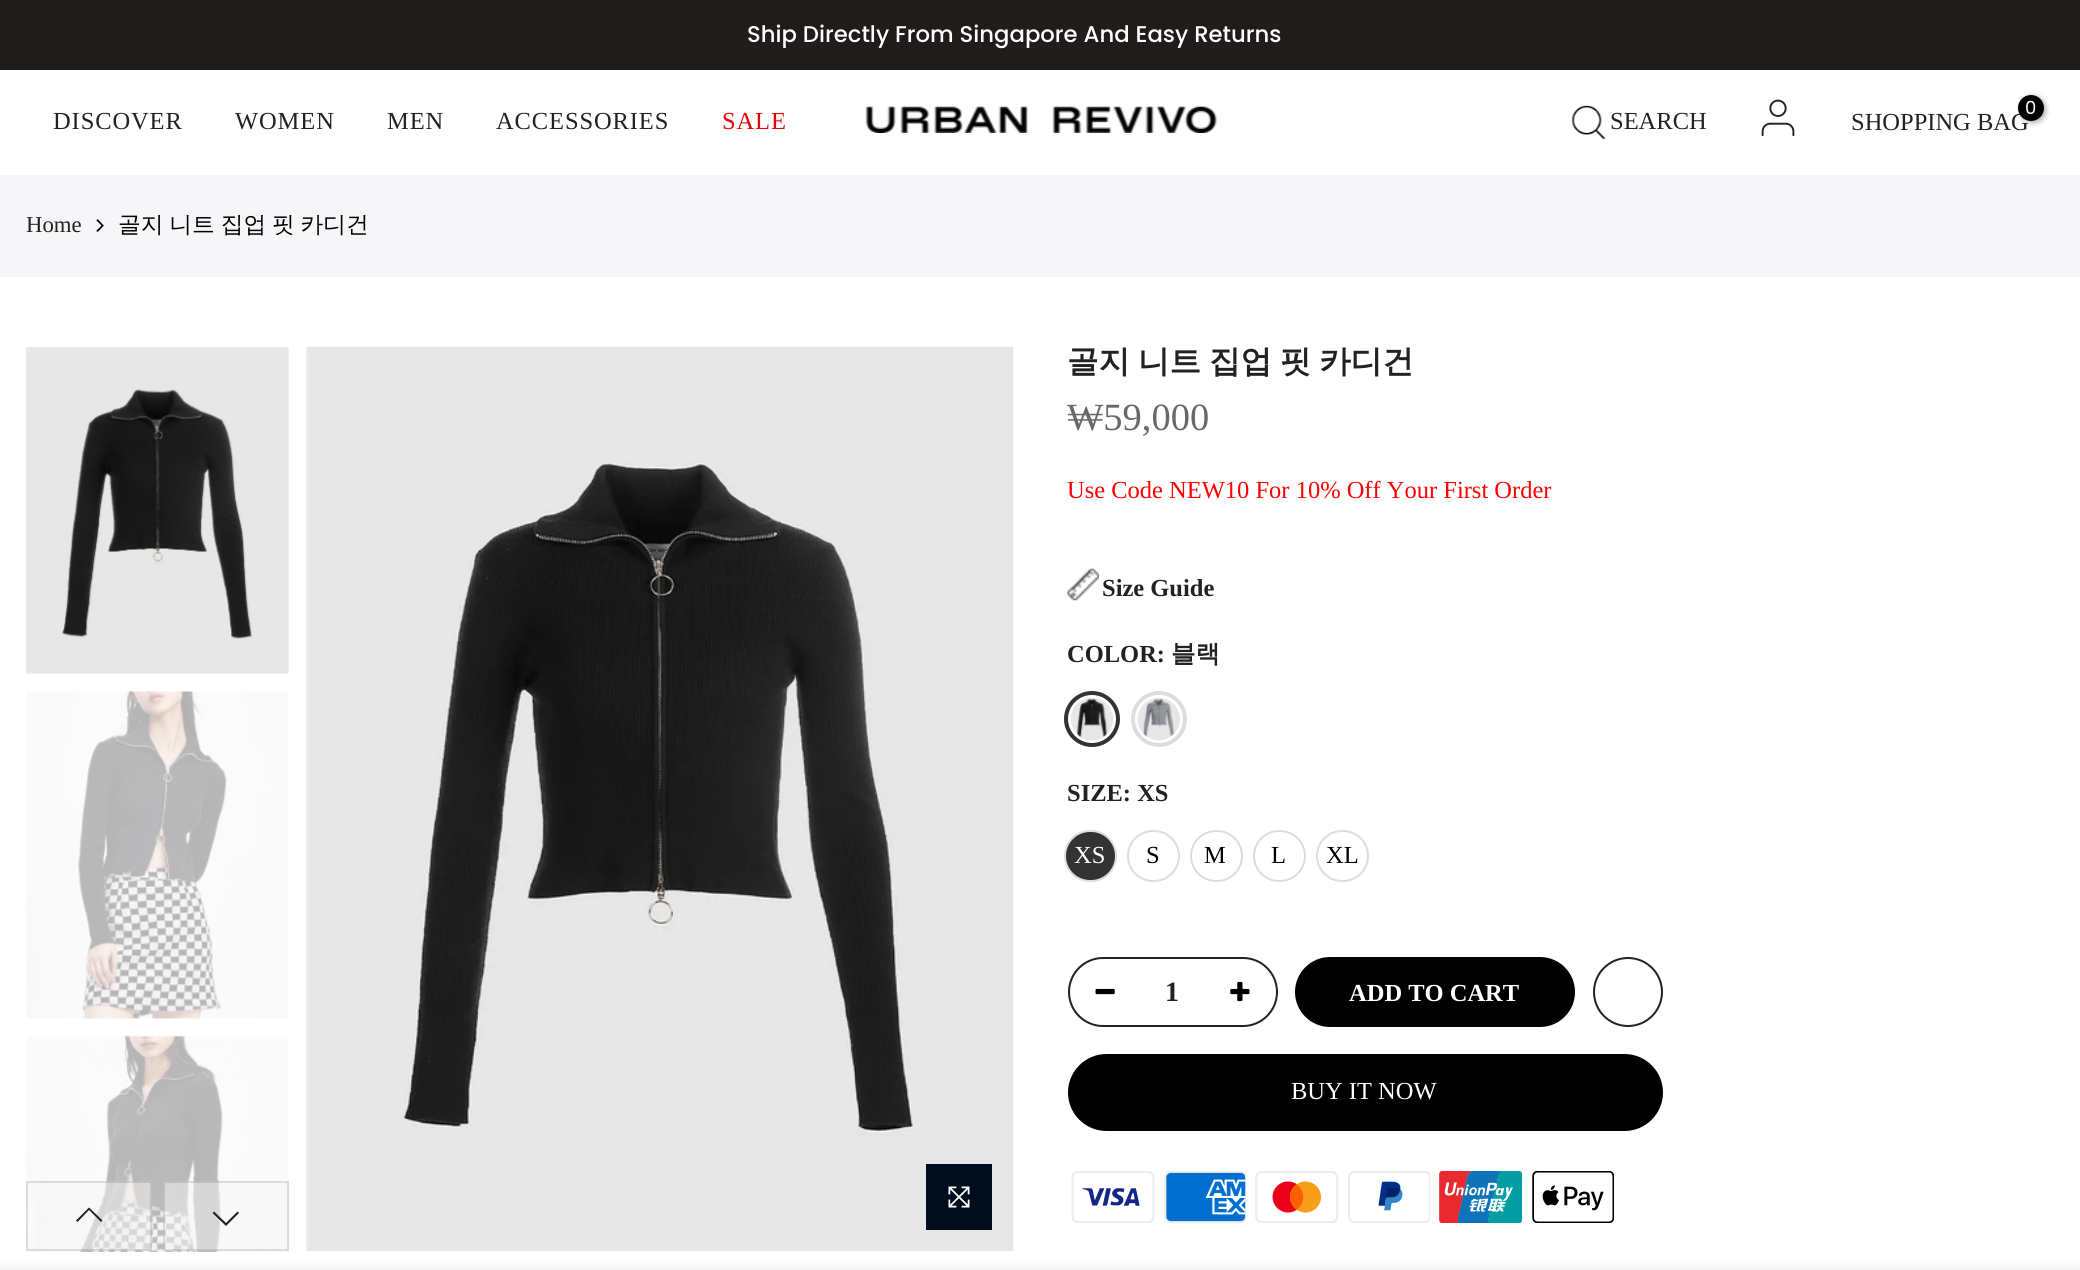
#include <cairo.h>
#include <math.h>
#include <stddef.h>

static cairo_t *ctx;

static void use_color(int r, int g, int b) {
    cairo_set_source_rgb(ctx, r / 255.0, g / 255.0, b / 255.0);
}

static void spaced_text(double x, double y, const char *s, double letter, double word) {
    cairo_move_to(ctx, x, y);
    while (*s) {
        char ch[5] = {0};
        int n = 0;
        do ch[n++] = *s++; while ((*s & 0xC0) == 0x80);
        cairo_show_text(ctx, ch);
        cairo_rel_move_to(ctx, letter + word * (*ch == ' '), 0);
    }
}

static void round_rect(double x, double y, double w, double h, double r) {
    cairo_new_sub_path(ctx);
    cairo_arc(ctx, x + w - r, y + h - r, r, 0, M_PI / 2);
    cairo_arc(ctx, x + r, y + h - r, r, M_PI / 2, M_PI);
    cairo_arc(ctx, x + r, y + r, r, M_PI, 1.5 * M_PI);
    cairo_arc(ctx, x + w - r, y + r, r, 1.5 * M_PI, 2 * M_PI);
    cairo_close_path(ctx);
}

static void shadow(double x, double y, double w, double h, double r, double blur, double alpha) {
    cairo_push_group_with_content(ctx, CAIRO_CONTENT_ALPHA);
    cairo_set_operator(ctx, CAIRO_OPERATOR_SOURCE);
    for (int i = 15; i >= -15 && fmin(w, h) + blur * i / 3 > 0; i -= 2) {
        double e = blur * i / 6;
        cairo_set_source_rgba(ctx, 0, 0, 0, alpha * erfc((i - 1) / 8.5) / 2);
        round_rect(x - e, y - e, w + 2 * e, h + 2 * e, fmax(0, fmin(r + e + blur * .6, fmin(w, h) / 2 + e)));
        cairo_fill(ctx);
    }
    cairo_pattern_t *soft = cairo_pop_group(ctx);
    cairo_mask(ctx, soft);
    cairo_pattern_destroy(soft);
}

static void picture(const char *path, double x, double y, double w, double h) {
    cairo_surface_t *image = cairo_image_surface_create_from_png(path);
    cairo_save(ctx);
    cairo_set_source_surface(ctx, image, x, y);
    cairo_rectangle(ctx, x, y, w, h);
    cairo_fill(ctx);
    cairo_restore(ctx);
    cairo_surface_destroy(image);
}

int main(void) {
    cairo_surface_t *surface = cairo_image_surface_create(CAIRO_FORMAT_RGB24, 2080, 1270);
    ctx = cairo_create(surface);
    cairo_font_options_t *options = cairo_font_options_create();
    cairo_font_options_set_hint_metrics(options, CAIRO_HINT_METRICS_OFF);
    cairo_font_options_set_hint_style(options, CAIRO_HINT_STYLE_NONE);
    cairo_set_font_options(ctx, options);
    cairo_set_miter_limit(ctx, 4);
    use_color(255, 255, 255);
    cairo_paint(ctx);
    use_color(33, 28, 28);
    cairo_rectangle(ctx, 0, 0, 2080, 70);
    cairo_fill(ctx);
    cairo_select_font_face(ctx, "Poppins Medium", CAIRO_FONT_SLANT_NORMAL, CAIRO_FONT_WEIGHT_NORMAL);
    cairo_set_font_size(ctx, 22.75);
    use_color(255, 255, 255);
    cairo_move_to(ctx, 747, 42);
    cairo_show_text(ctx, "Ship Directly From Singapore And Easy Returns");
    cairo_select_font_face(ctx, "Liberation Serif", CAIRO_FONT_SLANT_NORMAL, CAIRO_FONT_WEIGHT_NORMAL);
    cairo_set_font_size(ctx, 24.5);
    use_color(34, 34, 34);
    spaced_text(53, 129, "DISCOVER", 0.9, 0);
    spaced_text(235, 129, "WOMEN", 0.9, 0);
    spaced_text(387, 129, "MEN", 0.9, 0);
    spaced_text(496, 129, "ACCESSORIES", 0.9, 0);
    use_color(236, 1, 1);
    spaced_text(722, 129, "SALE", 0.9, 0);
    picture("img1.png", 865, 106, 352, 27);
    picture("img2.png", 1571, 105, 35, 35);
    use_color(34, 34, 34);
    cairo_move_to(ctx, 1610, 129);
    cairo_show_text(ctx, "SEARCH");
    picture("img3.png", 1761, 99, 34, 38);
    use_color(0, 0, 0);
    shadow(2020, 96, 26, 27, 13, 2.5, 0.3);
    use_color(34, 34, 34);
    cairo_move_to(ctx, 1851, 130);
    cairo_show_text(ctx, "SHOPPING BAG");
    use_color(0, 0, 0);
    cairo_new_path(ctx);
    cairo_arc(ctx, 2031, 108, 13, 0, 2 * M_PI);
    cairo_fill(ctx);
    cairo_select_font_face(ctx, "Poppins", CAIRO_FONT_SLANT_NORMAL, CAIRO_FONT_WEIGHT_NORMAL);
    cairo_set_font_size(ctx, 18);
    use_color(255, 255, 255);
    cairo_move_to(ctx, 2025, 114);
    cairo_show_text(ctx, "0");
    use_color(246, 246, 248);
    cairo_rectangle(ctx, 0, 175, 2080, 102);
    cairo_fill(ctx);
    cairo_select_font_face(ctx, "Liberation Serif", CAIRO_FONT_SLANT_NORMAL, CAIRO_FONT_WEIGHT_NORMAL);
    cairo_set_font_size(ctx, 22.75);
    use_color(34, 34, 34);
    cairo_move_to(ctx, 26, 232);
    cairo_show_text(ctx, "Home");
    picture("img4.png", 96, 219, 8, 13);
    cairo_select_font_face(ctx, "WenQuanYi Zen Hei Medium", CAIRO_FONT_SLANT_NORMAL, CAIRO_FONT_WEIGHT_NORMAL);
    use_color(0, 0, 0);
    spaced_text(118, 232, "골지 니트 집업 핏 카디건", 0, -1);
    picture("img5.png", 26, 347, 263, 327);
    picture("img6.png", 26, 691, 262, 328);
    picture("img7.png", 26, 1035, 262, 217);
    cairo_set_source_rgba(ctx, 0.961, 0.961, 0.961, 0.5);
    cairo_rectangle(ctx, 35, 1181, 117, 70);
    cairo_fill(ctx);
    cairo_rectangle(ctx, 27, 1182, 124, 68);
    cairo_set_source_rgba(ctx, 0, 0, 0, 0.12);
    cairo_stroke(ctx);
    use_color(34, 34, 34);
    cairo_new_path(ctx);
    cairo_move_to(ctx, 89, 1207.5);
    cairo_line_to(ctx, 76, 1220.5);
    cairo_line_to(ctx, 77.5, 1222);
    cairo_line_to(ctx, 89, 1210);
    cairo_line_to(ctx, 101, 1222);
    cairo_line_to(ctx, 102.5, 1220.5);
    cairo_close_path(ctx);
    cairo_fill(ctx);
    cairo_set_source_rgba(ctx, 0.961, 0.961, 0.961, 0.5);
    cairo_rectangle(ctx, 163, 1181, 126, 70);
    cairo_fill(ctx);
    cairo_rectangle(ctx, 164, 1182, 124, 68);
    cairo_set_source_rgba(ctx, 0, 0, 0, 0.12);
    cairo_stroke(ctx);
    use_color(34, 34, 34);
    cairo_new_path(ctx);
    cairo_move_to(ctx, 214, 1211.5);
    cairo_line_to(ctx, 212.5, 1213);
    cairo_line_to(ctx, 226, 1226);
    cairo_line_to(ctx, 239, 1213);
    cairo_line_to(ctx, 237.5, 1211.5);
    cairo_line_to(ctx, 226, 1223);
    cairo_close_path(ctx);
    cairo_fill(ctx);
    picture("img8.png", 306, 346, 708, 905);
    use_color(0, 13, 29);
    cairo_rectangle(ctx, 926, 1164, 66, 66);
    cairo_fill(ctx);
    picture("img9.png", 948, 1186, 22, 22);
    cairo_select_font_face(ctx, "WenQuanYi Zen Hei", CAIRO_FONT_SLANT_NORMAL, CAIRO_FONT_WEIGHT_BOLD);
    cairo_set_font_size(ctx, 31.5);
    use_color(34, 34, 34);
    spaced_text(1067, 372, "골지 니트 집업 핏 카디건", 0, -1.5);
    cairo_select_font_face(ctx, "Liberation Serif", CAIRO_FONT_SLANT_NORMAL, CAIRO_FONT_WEIGHT_NORMAL);
    cairo_set_font_size(ctx, 38.5);
    use_color(105, 105, 105);
    cairo_move_to(ctx, 1067, 430);
    cairo_show_text(ctx, "₩59,000");
    cairo_set_font_size(ctx, 24.5);
    use_color(255, 0, 0);
    cairo_move_to(ctx, 1067, 498);
    cairo_show_text(ctx, "Use Code NEW10 For 10% Off Your First Order");
    picture("img10.png", 1067, 568, 32, 33);
    cairo_select_font_face(ctx, "Liberation Serif", CAIRO_FONT_SLANT_NORMAL, CAIRO_FONT_WEIGHT_BOLD);
    use_color(34, 34, 34);
    cairo_move_to(ctx, 1102, 596);
    cairo_show_text(ctx, "Size Guide");
    cairo_move_to(ctx, 1067, 662);
    cairo_show_text(ctx, "COLOR:");
    cairo_select_font_face(ctx, "WenQuanYi Zen Hei", CAIRO_FONT_SLANT_NORMAL, CAIRO_FONT_WEIGHT_BOLD);
    cairo_move_to(ctx, 1171, 662);
    cairo_show_text(ctx, "블랙");
    cairo_new_path(ctx);
    cairo_arc(ctx, 1092, 719, 26, 0, 2 * M_PI);
    use_color(51, 51, 51);
    cairo_set_line_width(ctx, 4);
    cairo_stroke(ctx);
    use_color(229, 229, 229);
    cairo_arc(ctx, 1092, 719, 21, 0, 2 * M_PI);
    cairo_fill(ctx);
    picture("img11.png", 1071, 698, 43, 43);
    cairo_arc(ctx, 1159, 719, 26, 0, 2 * M_PI);
    use_color(221, 221, 221);
    cairo_stroke(ctx);
    use_color(229, 229, 229);
    cairo_arc(ctx, 1159, 719, 21, 0, 2 * M_PI);
    cairo_fill(ctx);
    picture("img12.png", 1137, 698, 38, 43);
    cairo_select_font_face(ctx, "Liberation Serif", CAIRO_FONT_SLANT_NORMAL, CAIRO_FONT_WEIGHT_BOLD);
    use_color(34, 34, 34);
    cairo_move_to(ctx, 1067, 801);
    cairo_show_text(ctx, "SIZE: XS");
    use_color(51, 51, 51);
    round_rect(1065, 831, 51, 50, 25);
    cairo_fill_preserve(ctx);
    use_color(221, 221, 221);
    cairo_set_line_width(ctx, 2);
    cairo_stroke(ctx);
    cairo_select_font_face(ctx, "Liberation Serif", CAIRO_FONT_SLANT_NORMAL, CAIRO_FONT_WEIGHT_NORMAL);
    use_color(255, 255, 255);
    cairo_move_to(ctx, 1074, 863);
    cairo_show_text(ctx, "XS");
    round_rect(1128, 831, 51, 50, 25);
    use_color(221, 221, 221);
    cairo_stroke(ctx);
    use_color(0, 0, 0);
    cairo_move_to(ctx, 1146, 863);
    cairo_show_text(ctx, "S");
    round_rect(1191, 831, 51, 50, 25);
    use_color(221, 221, 221);
    cairo_stroke(ctx);
    use_color(0, 0, 0);
    cairo_move_to(ctx, 1204, 863);
    cairo_show_text(ctx, "M");
    round_rect(1254, 831, 51, 50, 25);
    use_color(221, 221, 221);
    cairo_stroke(ctx);
    use_color(0, 0, 0);
    cairo_move_to(ctx, 1271, 863);
    cairo_show_text(ctx, "L");
    round_rect(1317, 831, 51, 50, 25);
    use_color(221, 221, 221);
    cairo_stroke(ctx);
    use_color(0, 0, 0);
    cairo_move_to(ctx, 1326, 863);
    cairo_show_text(ctx, "XL");
    round_rect(1069, 958, 208, 68, 34);
    use_color(34, 34, 34);
    cairo_stroke(ctx);
    picture("img13.png", 1095, 988, 20, 7);
    picture("img14.png", 1230, 981, 20, 21);
    cairo_select_font_face(ctx, "Liberation Serif", CAIRO_FONT_SLANT_NORMAL, CAIRO_FONT_WEIGHT_BOLD);
    cairo_set_font_size(ctx, 28);
    cairo_move_to(ctx, 1165, 1001);
    cairo_show_text(ctx, "1");
    use_color(0, 0, 0);
    round_rect(1295, 957, 280, 70, 35);
    cairo_fill(ctx);
    cairo_set_font_size(ctx, 24.5);
    use_color(255, 255, 255);
    cairo_move_to(ctx, 1349, 1001);
    cairo_show_text(ctx, "ADD TO CART");
    cairo_new_path(ctx);
    cairo_arc(ctx, 1628, 992, 34, 0, 2 * M_PI);
    use_color(34, 34, 34);
    cairo_stroke(ctx);
    use_color(0, 0, 0);
    round_rect(1068, 1054, 595, 77, 38.5);
    cairo_fill(ctx);
    cairo_select_font_face(ctx, "Liberation Serif", CAIRO_FONT_SLANT_NORMAL, CAIRO_FONT_WEIGHT_NORMAL);
    use_color(255, 255, 255);
    cairo_move_to(ctx, 1291, 1099);
    cairo_show_text(ctx, "BUY IT NOW");
    picture("img15.png", 1071, 1171, 84, 52);
    picture("img16.png", 1164, 1171, 82, 52);
    picture("img17.png", 1255, 1171, 84, 52);
    picture("img18.png", 1348, 1171, 82, 52);
    picture("img19.png", 1439, 1171, 84, 52);
    picture("img20.png", 1532, 1171, 82, 52);
    use_color(0, 0, 0);
    shadow(0, 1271, 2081, 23, 0, 8, 0.12);
    cairo_surface_write_to_png(surface, "result.png");
    cairo_font_options_destroy(options);
    cairo_destroy(ctx);
    cairo_surface_destroy(surface);
    return 0;
}
